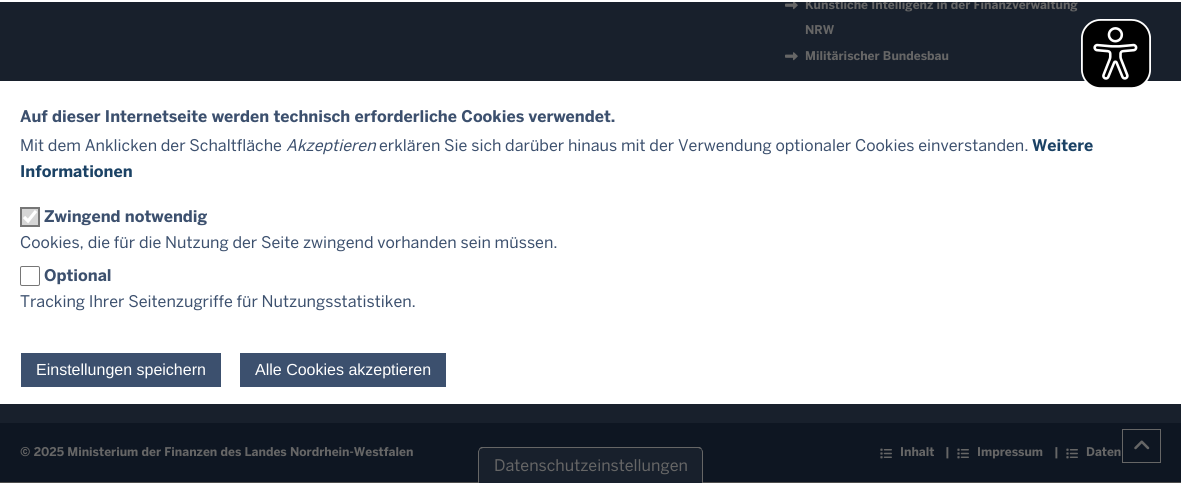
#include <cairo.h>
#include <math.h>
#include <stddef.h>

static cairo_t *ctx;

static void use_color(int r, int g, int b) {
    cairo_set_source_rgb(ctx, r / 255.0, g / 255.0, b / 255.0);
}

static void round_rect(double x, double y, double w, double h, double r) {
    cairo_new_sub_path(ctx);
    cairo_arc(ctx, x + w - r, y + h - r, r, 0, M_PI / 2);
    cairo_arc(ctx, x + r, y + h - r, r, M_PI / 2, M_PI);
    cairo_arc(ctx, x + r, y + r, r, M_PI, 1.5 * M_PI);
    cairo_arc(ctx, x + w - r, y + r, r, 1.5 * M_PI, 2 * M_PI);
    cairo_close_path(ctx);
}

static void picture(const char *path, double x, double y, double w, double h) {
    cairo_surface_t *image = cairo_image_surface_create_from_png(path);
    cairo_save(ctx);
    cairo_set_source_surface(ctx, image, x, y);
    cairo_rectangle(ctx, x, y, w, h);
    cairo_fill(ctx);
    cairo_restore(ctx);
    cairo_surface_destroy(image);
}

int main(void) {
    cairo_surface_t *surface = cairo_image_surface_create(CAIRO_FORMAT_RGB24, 1181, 483);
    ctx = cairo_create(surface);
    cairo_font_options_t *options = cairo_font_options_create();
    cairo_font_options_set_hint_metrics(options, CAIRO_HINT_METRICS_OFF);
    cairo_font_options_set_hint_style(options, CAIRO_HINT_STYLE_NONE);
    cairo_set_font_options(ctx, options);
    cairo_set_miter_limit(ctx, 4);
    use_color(77, 77, 77);
    cairo_paint(ctx);
    use_color(14, 22, 34);
    cairo_rectangle(ctx, 0, 423, 1181, 59);
    cairo_fill(ctx);
    use_color(24, 32, 44);
    cairo_rectangle(ctx, 0, 2, 1181, 421);
    cairo_fill(ctx);
    picture("img1.png", 785, 2, 13, 8);
    cairo_select_font_face(ctx, "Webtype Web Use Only", CAIRO_FONT_SLANT_NORMAL, CAIRO_FONT_WEIGHT_BOLD);
    cairo_set_font_size(ctx, 12);
    use_color(102, 102, 102);
    cairo_move_to(ctx, 805, 9);
    cairo_show_text(ctx, "Künstliche Intelligenz in der Finanzverwaltung");
    cairo_move_to(ctx, 805, 34);
    cairo_show_text(ctx, "NRW");
    picture("img2.png", 785, 52, 13, 9);
    cairo_move_to(ctx, 805, 60);
    cairo_show_text(ctx, "Militärischer Bundesbau");
    cairo_move_to(ctx, 20, 456);
    cairo_show_text(ctx, "© 2025 Ministerium der Finanzen des Landes Nordrhein-Westfalen");
    picture("img3.png", 880, 448, 12, 11);
    cairo_move_to(ctx, 900, 456);
    cairo_show_text(ctx, "Inhalt");
    cairo_move_to(ctx, 945, 456);
    cairo_show_text(ctx, "|");
    picture("img3.png", 957, 448, 12, 11);
    cairo_move_to(ctx, 977, 456);
    cairo_show_text(ctx, "Impressum");
    cairo_move_to(ctx, 1054, 456);
    cairo_show_text(ctx, "|");
    picture("img3.png", 1066, 448, 12, 11);
    cairo_move_to(ctx, 1086, 456);
    cairo_show_text(ctx, "Daten");
    cairo_rectangle(ctx, 1122.5, 429.5, 38, 33);
    cairo_set_line_width(ctx, 1);
    cairo_stroke(ctx);
    picture("img4.png", 1134, 440, 16, 10);
    use_color(255, 255, 255);
    cairo_rectangle(ctx, 0, 81, 1181, 323);
    cairo_fill(ctx);
    picture("img5.png", 1081, 19, 70, 69);
    cairo_rectangle(ctx, 0, 0, 1181, 2);
    cairo_fill(ctx);
    cairo_set_font_size(ctx, 16);
    use_color(60, 80, 110);
    cairo_move_to(ctx, 20, 122);
    cairo_show_text(ctx, "Auf dieser Internetseite werden technisch erforderliche Cookies verwendet.");
    cairo_select_font_face(ctx, "Webtype Web Use Only", CAIRO_FONT_SLANT_NORMAL, CAIRO_FONT_WEIGHT_NORMAL);
    cairo_move_to(ctx, 20, 151);
    cairo_show_text(ctx, "Mit dem Anklicken der Schaltfläche");
    cairo_select_font_face(ctx, "Webtype Web Use Only", CAIRO_FONT_SLANT_ITALIC, CAIRO_FONT_WEIGHT_NORMAL);
    cairo_move_to(ctx, 286, 151);
    cairo_show_text(ctx, "Akzeptieren");
    cairo_select_font_face(ctx, "Webtype Web Use Only", CAIRO_FONT_SLANT_NORMAL, CAIRO_FONT_WEIGHT_NORMAL);
    cairo_move_to(ctx, 379, 151);
    cairo_show_text(ctx, "erklären Sie sich darüber hinaus mit der Verwendung optionaler Cookies einverstanden.");
    cairo_select_font_face(ctx, "Webtype Web Use Only", CAIRO_FONT_SLANT_NORMAL, CAIRO_FONT_WEIGHT_BOLD);
    use_color(27, 66, 101);
    cairo_move_to(ctx, 1032, 151);
    cairo_show_text(ctx, "Weitere");
    cairo_move_to(ctx, 20, 177);
    cairo_show_text(ctx, "Informationen");
    use_color(214, 214, 214);
    cairo_rectangle(ctx, 22, 209, 16, 16);
    cairo_fill(ctx);
    cairo_new_path(ctx);
    cairo_move_to(ctx, 24, 217);
    cairo_line_to(ctx, 28, 221);
    cairo_line_to(ctx, 36, 211);
    use_color(255, 255, 255);
    cairo_set_line_width(ctx, 3.2);
    cairo_stroke(ctx);
    cairo_rectangle(ctx, 21, 208, 18, 18);
    use_color(118, 118, 118);
    cairo_set_line_width(ctx, 2);
    cairo_stroke(ctx);
    use_color(60, 80, 110);
    cairo_move_to(ctx, 44, 222);
    cairo_show_text(ctx, "Zwingend notwendig");
    cairo_select_font_face(ctx, "Webtype Web Use Only", CAIRO_FONT_SLANT_NORMAL, CAIRO_FONT_WEIGHT_NORMAL);
    cairo_move_to(ctx, 20, 248);
    cairo_show_text(ctx, "Cookies, die für die Nutzung der Seite zwingend vorhanden sein müssen.");
    round_rect(20.5, 266.5, 19, 19, 1.5);
    use_color(118, 118, 118);
    cairo_set_line_width(ctx, 1);
    cairo_stroke(ctx);
    cairo_select_font_face(ctx, "Webtype Web Use Only", CAIRO_FONT_SLANT_NORMAL, CAIRO_FONT_WEIGHT_BOLD);
    use_color(60, 80, 110);
    cairo_move_to(ctx, 44, 281);
    cairo_show_text(ctx, "Optional");
    cairo_select_font_face(ctx, "Webtype Web Use Only", CAIRO_FONT_SLANT_NORMAL, CAIRO_FONT_WEIGHT_NORMAL);
    cairo_move_to(ctx, 20, 307);
    cairo_show_text(ctx, "Tracking Ihrer Seitenzugriffe für Nutzungsstatistiken.");
    cairo_rectangle(ctx, 21, 353, 200, 34);
    cairo_fill(ctx);
    cairo_select_font_face(ctx, "Liberation Sans", CAIRO_FONT_SLANT_NORMAL, CAIRO_FONT_WEIGHT_NORMAL);
    use_color(255, 255, 255);
    cairo_move_to(ctx, 36, 375);
    cairo_show_text(ctx, "Einstellungen speichern");
    use_color(60, 80, 110);
    cairo_rectangle(ctx, 240, 353, 206, 34);
    cairo_fill(ctx);
    use_color(255, 255, 255);
    cairo_move_to(ctx, 255, 375);
    cairo_show_text(ctx, "Alle Cookies akzeptieren");
    use_color(24, 32, 44);
    cairo_new_path(ctx);
    cairo_move_to(ctx, 483, 447);
    cairo_line_to(ctx, 698, 447);
    cairo_curve_to(ctx, 701, 447, 703, 449, 703, 452);
    cairo_line_to(ctx, 703, 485);
    cairo_line_to(ctx, 478, 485);
    cairo_line_to(ctx, 478, 452);
    cairo_curve_to(ctx, 478, 449, 480, 447, 483, 447);
    cairo_close_path(ctx);
    cairo_fill(ctx);
    use_color(102, 102, 102);
    cairo_new_path(ctx);
    cairo_move_to(ctx, 483, 448);
    cairo_line_to(ctx, 480, 449);
    cairo_line_to(ctx, 479, 449);
    cairo_line_to(ctx, 481, 447);
    cairo_line_to(ctx, 700, 447);
    cairo_line_to(ctx, 702, 449);
    cairo_line_to(ctx, 701, 449);
    cairo_curve_to(ctx, 700, 449, 699, 448, 698, 448);
    cairo_close_path(ctx);
    cairo_fill(ctx);
    cairo_new_path(ctx);
    cairo_move_to(ctx, 701.5, 449);
    cairo_curve_to(ctx, 702.5, 450, 703, 451, 703, 452);
    cairo_line_to(ctx, 703, 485);
    cairo_line_to(ctx, 702.5, 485);
    cairo_line_to(ctx, 701.5, 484);
    cairo_line_to(ctx, 702, 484);
    cairo_line_to(ctx, 702, 452);
    cairo_curve_to(ctx, 702, 451, 701.5, 450, 701, 449.5);
    cairo_close_path(ctx);
    cairo_fill(ctx);
    cairo_new_path(ctx);
    cairo_move_to(ctx, 478, 451.5);
    cairo_line_to(ctx, 479.5, 448.5);
    cairo_line_to(ctx, 480, 449.5);
    cairo_curve_to(ctx, 479.5, 450, 479, 451, 479, 452);
    cairo_line_to(ctx, 479, 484);
    cairo_line_to(ctx, 479.5, 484);
    cairo_line_to(ctx, 478.5, 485);
    cairo_line_to(ctx, 478, 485);
    cairo_close_path(ctx);
    cairo_fill(ctx);
    cairo_select_font_face(ctx, "Webtype Web Use Only", CAIRO_FONT_SLANT_NORMAL, CAIRO_FONT_WEIGHT_NORMAL);
    cairo_move_to(ctx, 494, 471);
    cairo_show_text(ctx, "Datenschutzeinstellungen");
    cairo_surface_write_to_png(surface, "result.png");
    cairo_font_options_destroy(options);
    cairo_destroy(ctx);
    cairo_surface_destroy(surface);
    return 0;
}
